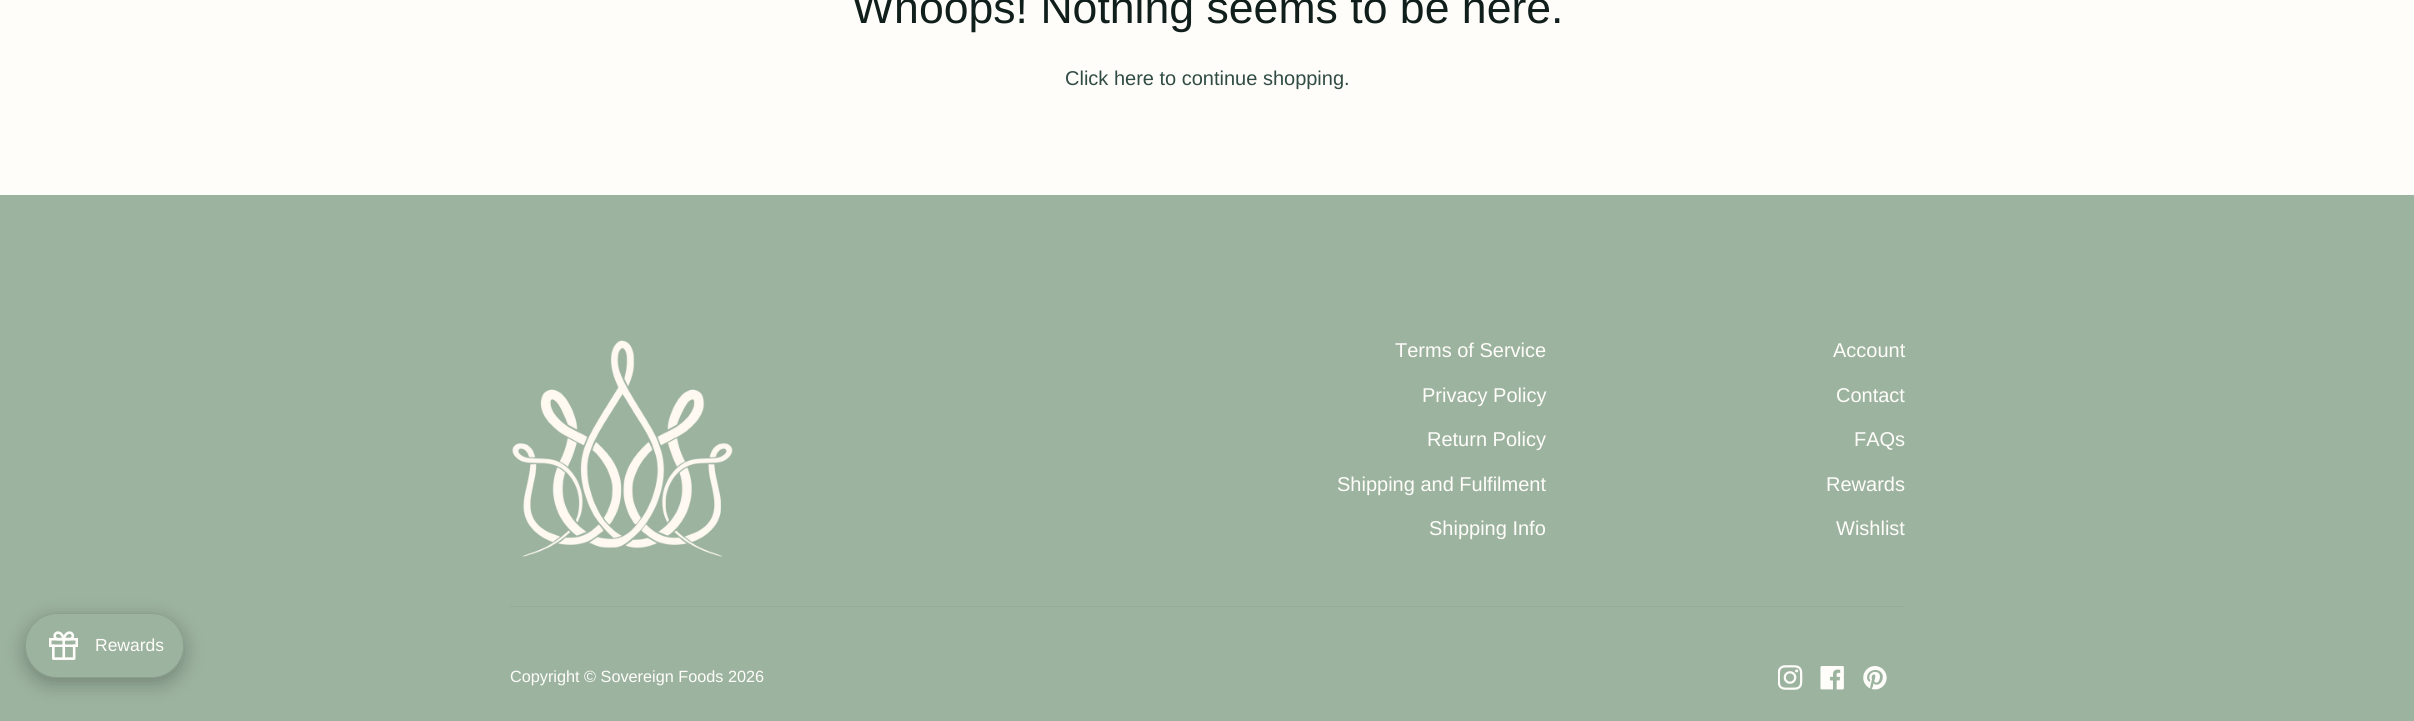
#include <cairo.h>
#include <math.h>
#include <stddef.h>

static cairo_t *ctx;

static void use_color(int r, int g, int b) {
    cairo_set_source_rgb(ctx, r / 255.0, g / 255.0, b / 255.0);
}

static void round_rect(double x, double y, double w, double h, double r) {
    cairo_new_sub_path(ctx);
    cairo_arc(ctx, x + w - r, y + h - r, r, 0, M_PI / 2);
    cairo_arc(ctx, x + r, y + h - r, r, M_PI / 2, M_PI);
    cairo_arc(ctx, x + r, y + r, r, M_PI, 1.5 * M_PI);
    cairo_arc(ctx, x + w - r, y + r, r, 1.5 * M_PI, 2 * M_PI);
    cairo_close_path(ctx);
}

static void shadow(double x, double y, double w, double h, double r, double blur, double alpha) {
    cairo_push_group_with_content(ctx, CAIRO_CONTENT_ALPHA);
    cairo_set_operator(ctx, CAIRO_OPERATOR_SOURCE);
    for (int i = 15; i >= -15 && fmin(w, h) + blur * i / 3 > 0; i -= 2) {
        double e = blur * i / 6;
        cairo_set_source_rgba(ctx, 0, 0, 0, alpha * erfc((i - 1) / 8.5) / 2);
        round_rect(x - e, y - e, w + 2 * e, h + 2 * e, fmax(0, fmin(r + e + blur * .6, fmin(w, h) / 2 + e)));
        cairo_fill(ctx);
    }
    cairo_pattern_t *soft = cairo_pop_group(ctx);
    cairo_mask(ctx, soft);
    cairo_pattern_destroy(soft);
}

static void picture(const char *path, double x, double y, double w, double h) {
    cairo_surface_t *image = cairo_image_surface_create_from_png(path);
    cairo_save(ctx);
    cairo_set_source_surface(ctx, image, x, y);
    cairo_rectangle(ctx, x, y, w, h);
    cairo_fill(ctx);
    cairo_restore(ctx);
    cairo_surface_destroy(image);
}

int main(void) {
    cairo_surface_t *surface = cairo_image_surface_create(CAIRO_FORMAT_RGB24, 2414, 721);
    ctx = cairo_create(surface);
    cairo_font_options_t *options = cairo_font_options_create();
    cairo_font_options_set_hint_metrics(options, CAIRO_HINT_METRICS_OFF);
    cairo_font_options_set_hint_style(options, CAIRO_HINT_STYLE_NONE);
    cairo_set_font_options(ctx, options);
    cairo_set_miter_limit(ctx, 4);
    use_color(255, 253, 250);
    cairo_paint(ctx);
    cairo_select_font_face(ctx, "Liberation Sans", CAIRO_FONT_SLANT_NORMAL, CAIRO_FONT_WEIGHT_NORMAL);
    cairo_set_font_size(ctx, 44.6);
    use_color(16, 31, 28);
    cairo_move_to(ctx, 852, 23);
    cairo_show_text(ctx, "Whoops! Nothing seems to be here.");
    cairo_set_font_size(ctx, 20);
    use_color(48, 76, 69);
    cairo_move_to(ctx, 1065, 85);
    cairo_show_text(ctx, "Click here to continue shopping.");
    use_color(156, 179, 159);
    cairo_rectangle(ctx, 0, 195, 2414, 526);
    cairo_fill(ctx);
    use_color(0, 0, 0);
    shadow(25, 619, 159, 65, 32.5, 9.5, 0.25);
    use_color(156, 179, 159);
    round_rect(25, 613, 159, 65, 32.5);
    cairo_fill(ctx);
    round_rect(25.5, 613.5, 158, 64, 32);
    cairo_set_source_rgba(ctx, 0, 0, 0, 0.1);
    cairo_set_line_width(ctx, 1);
    cairo_stroke(ctx);
    picture("img1.png", 49, 631, 29, 29);
    cairo_set_font_size(ctx, 17.5);
    use_color(255, 253, 250);
    cairo_move_to(ctx, 95, 651);
    cairo_show_text(ctx, "Rewards");
    picture("img2.png", 512, 340, 221, 217);
    cairo_set_font_size(ctx, 20);
    cairo_move_to(ctx, 1395, 357);
    cairo_show_text(ctx, "Terms of Service");
    cairo_move_to(ctx, 1422, 402);
    cairo_show_text(ctx, "Privacy Policy");
    cairo_move_to(ctx, 1427, 446);
    cairo_show_text(ctx, "Return Policy");
    cairo_move_to(ctx, 1337, 491);
    cairo_show_text(ctx, "Shipping and Fulfilment");
    cairo_move_to(ctx, 1429, 535);
    cairo_show_text(ctx, "Shipping Info");
    cairo_move_to(ctx, 1833, 357);
    cairo_show_text(ctx, "Account");
    cairo_move_to(ctx, 1836, 402);
    cairo_show_text(ctx, "Contact");
    cairo_move_to(ctx, 1854, 446);
    cairo_show_text(ctx, "FAQs");
    cairo_move_to(ctx, 1826, 491);
    cairo_show_text(ctx, "Rewards");
    cairo_move_to(ctx, 1836, 535);
    cairo_show_text(ctx, "Wishlist");
    use_color(147, 171, 152);
    cairo_rectangle(ctx, 510, 606, 1395, 1);
    cairo_fill(ctx);
    cairo_set_font_size(ctx, 16.25);
    use_color(255, 253, 250);
    cairo_move_to(ctx, 510, 682);
    cairo_show_text(ctx, "Copyright © Sovereign Foods 2026");
    picture("img3.png", 1778, 665, 25, 25);
    picture("img4.png", 1820, 666, 24, 24);
    picture("img5.png", 1863, 666, 24, 24);
    cairo_surface_write_to_png(surface, "result.png");
    cairo_font_options_destroy(options);
    cairo_destroy(ctx);
    cairo_surface_destroy(surface);
    return 0;
}
